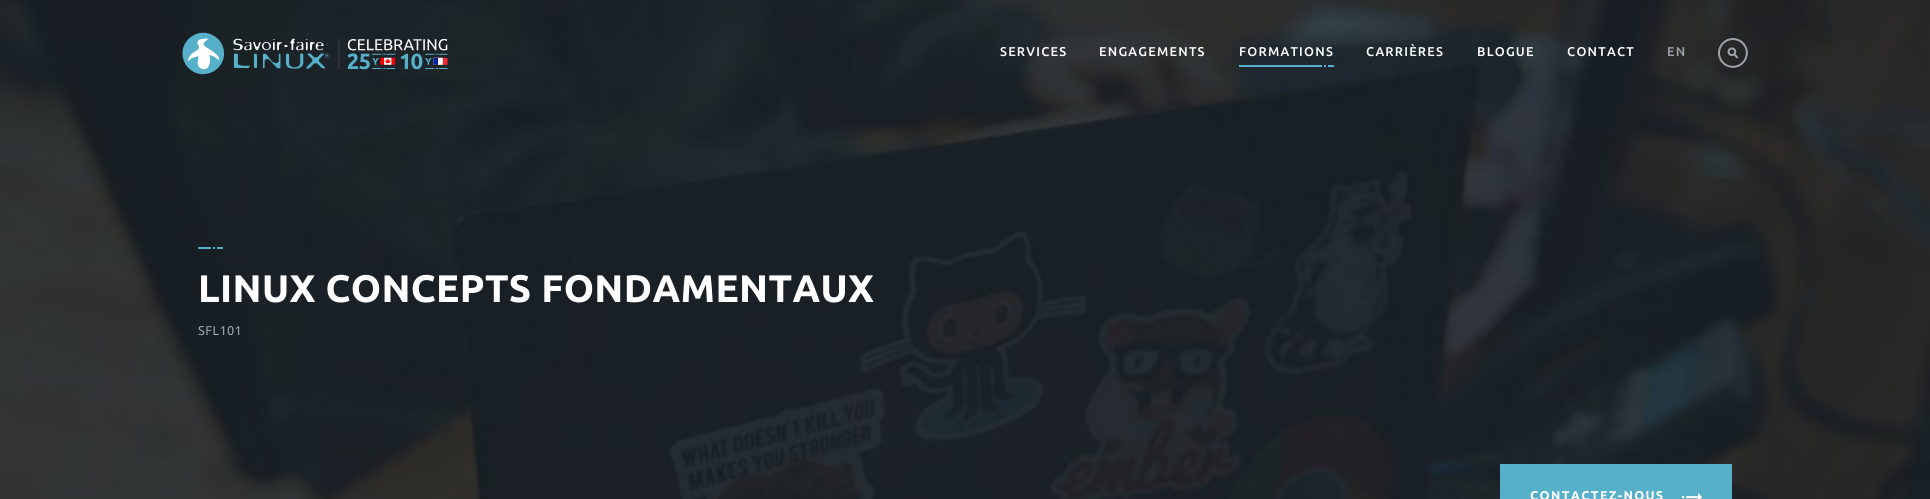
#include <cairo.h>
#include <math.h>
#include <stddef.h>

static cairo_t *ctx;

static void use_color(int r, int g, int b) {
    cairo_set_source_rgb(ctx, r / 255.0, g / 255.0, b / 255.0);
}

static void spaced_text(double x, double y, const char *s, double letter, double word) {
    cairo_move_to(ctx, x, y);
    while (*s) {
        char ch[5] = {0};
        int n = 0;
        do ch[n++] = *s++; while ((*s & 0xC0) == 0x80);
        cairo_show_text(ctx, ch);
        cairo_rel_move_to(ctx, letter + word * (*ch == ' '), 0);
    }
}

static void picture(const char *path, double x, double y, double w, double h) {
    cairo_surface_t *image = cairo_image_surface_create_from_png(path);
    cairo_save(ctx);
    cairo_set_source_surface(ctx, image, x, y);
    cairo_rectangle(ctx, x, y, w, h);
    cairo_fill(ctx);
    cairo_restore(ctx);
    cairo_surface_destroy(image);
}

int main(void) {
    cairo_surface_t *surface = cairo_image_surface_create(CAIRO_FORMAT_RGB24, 1930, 499);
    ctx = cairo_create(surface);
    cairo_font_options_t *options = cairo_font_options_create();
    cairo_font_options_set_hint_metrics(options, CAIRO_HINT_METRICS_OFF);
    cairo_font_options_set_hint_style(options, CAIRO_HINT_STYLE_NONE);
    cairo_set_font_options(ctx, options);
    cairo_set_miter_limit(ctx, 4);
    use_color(255, 255, 255);
    cairo_paint(ctx);
    picture("img3.png", 0, 0, 1930, 499);
    picture("img1.png", 182, 32, 266, 43);
    cairo_select_font_face(ctx, "Ubuntu Medium", CAIRO_FONT_SLANT_NORMAL, CAIRO_FONT_WEIGHT_NORMAL);
    cairo_set_font_size(ctx, 12.75);
    use_color(255, 255, 255);
    spaced_text(1000, 56, "SERVICES", 1.25, 0);
    spaced_text(1099, 56, "ENGAGEMENTS", 1.25, 0);
    spaced_text(1239, 56, "FORMATIONS", 1.25, 0);
    use_color(86, 176, 201);
    cairo_rectangle(ctx, 1239, 65, 83, 2);
    cairo_fill(ctx);
    cairo_rectangle(ctx, 1328, 65, 6, 2);
    cairo_fill(ctx);
    cairo_rectangle(ctx, 1324, 65, 2, 2);
    cairo_fill(ctx);
    use_color(255, 255, 255);
    spaced_text(1366, 56, "CARRIÈRES", 1.25, 0);
    spaced_text(1477, 56, "BLOGUE", 1.25, 0);
    spaced_text(1567, 56, "CONTACT", 1.25, 0);
    use_color(156, 163, 170);
    spaced_text(1667, 56, "EN", 1.25, 0);
    picture("img2.png", 1718, 38, 30, 30);
    use_color(86, 176, 201);
    cairo_rectangle(ctx, 198, 247, 13, 2);
    cairo_fill(ctx);
    cairo_rectangle(ctx, 213, 247, 2, 2);
    cairo_fill(ctx);
    cairo_rectangle(ctx, 217, 247, 6, 2);
    cairo_fill(ctx);
    cairo_select_font_face(ctx, "Ubuntu", CAIRO_FONT_SLANT_NORMAL, CAIRO_FONT_WEIGHT_BOLD);
    cairo_set_font_size(ctx, 38.4);
    use_color(255, 255, 255);
    spaced_text(198, 302, "LINUX CONCEPTS FONDAMENTAUX", 0.4, 0);
    cairo_select_font_face(ctx, "Ubuntu", CAIRO_FONT_SLANT_NORMAL, CAIRO_FONT_WEIGHT_NORMAL);
    cairo_set_font_size(ctx, 12.75);
    use_color(156, 163, 170);
    spaced_text(198, 335, "SFL101", 0.4, 0);
    use_color(86, 176, 201);
    cairo_rectangle(ctx, 1500, 464, 232, 35);
    cairo_fill(ctx);
    cairo_select_font_face(ctx, "Ubuntu", CAIRO_FONT_SLANT_NORMAL, CAIRO_FONT_WEIGHT_BOLD);
    use_color(255, 255, 255);
    spaced_text(1530, 500, "CONTACTEZ-NOUS", 1.25, 0);
    picture("img4.png", 1682, 493, 20, 6);
    cairo_surface_write_to_png(surface, "result.png");
    cairo_font_options_destroy(options);
    cairo_destroy(ctx);
    cairo_surface_destroy(surface);
    return 0;
}
